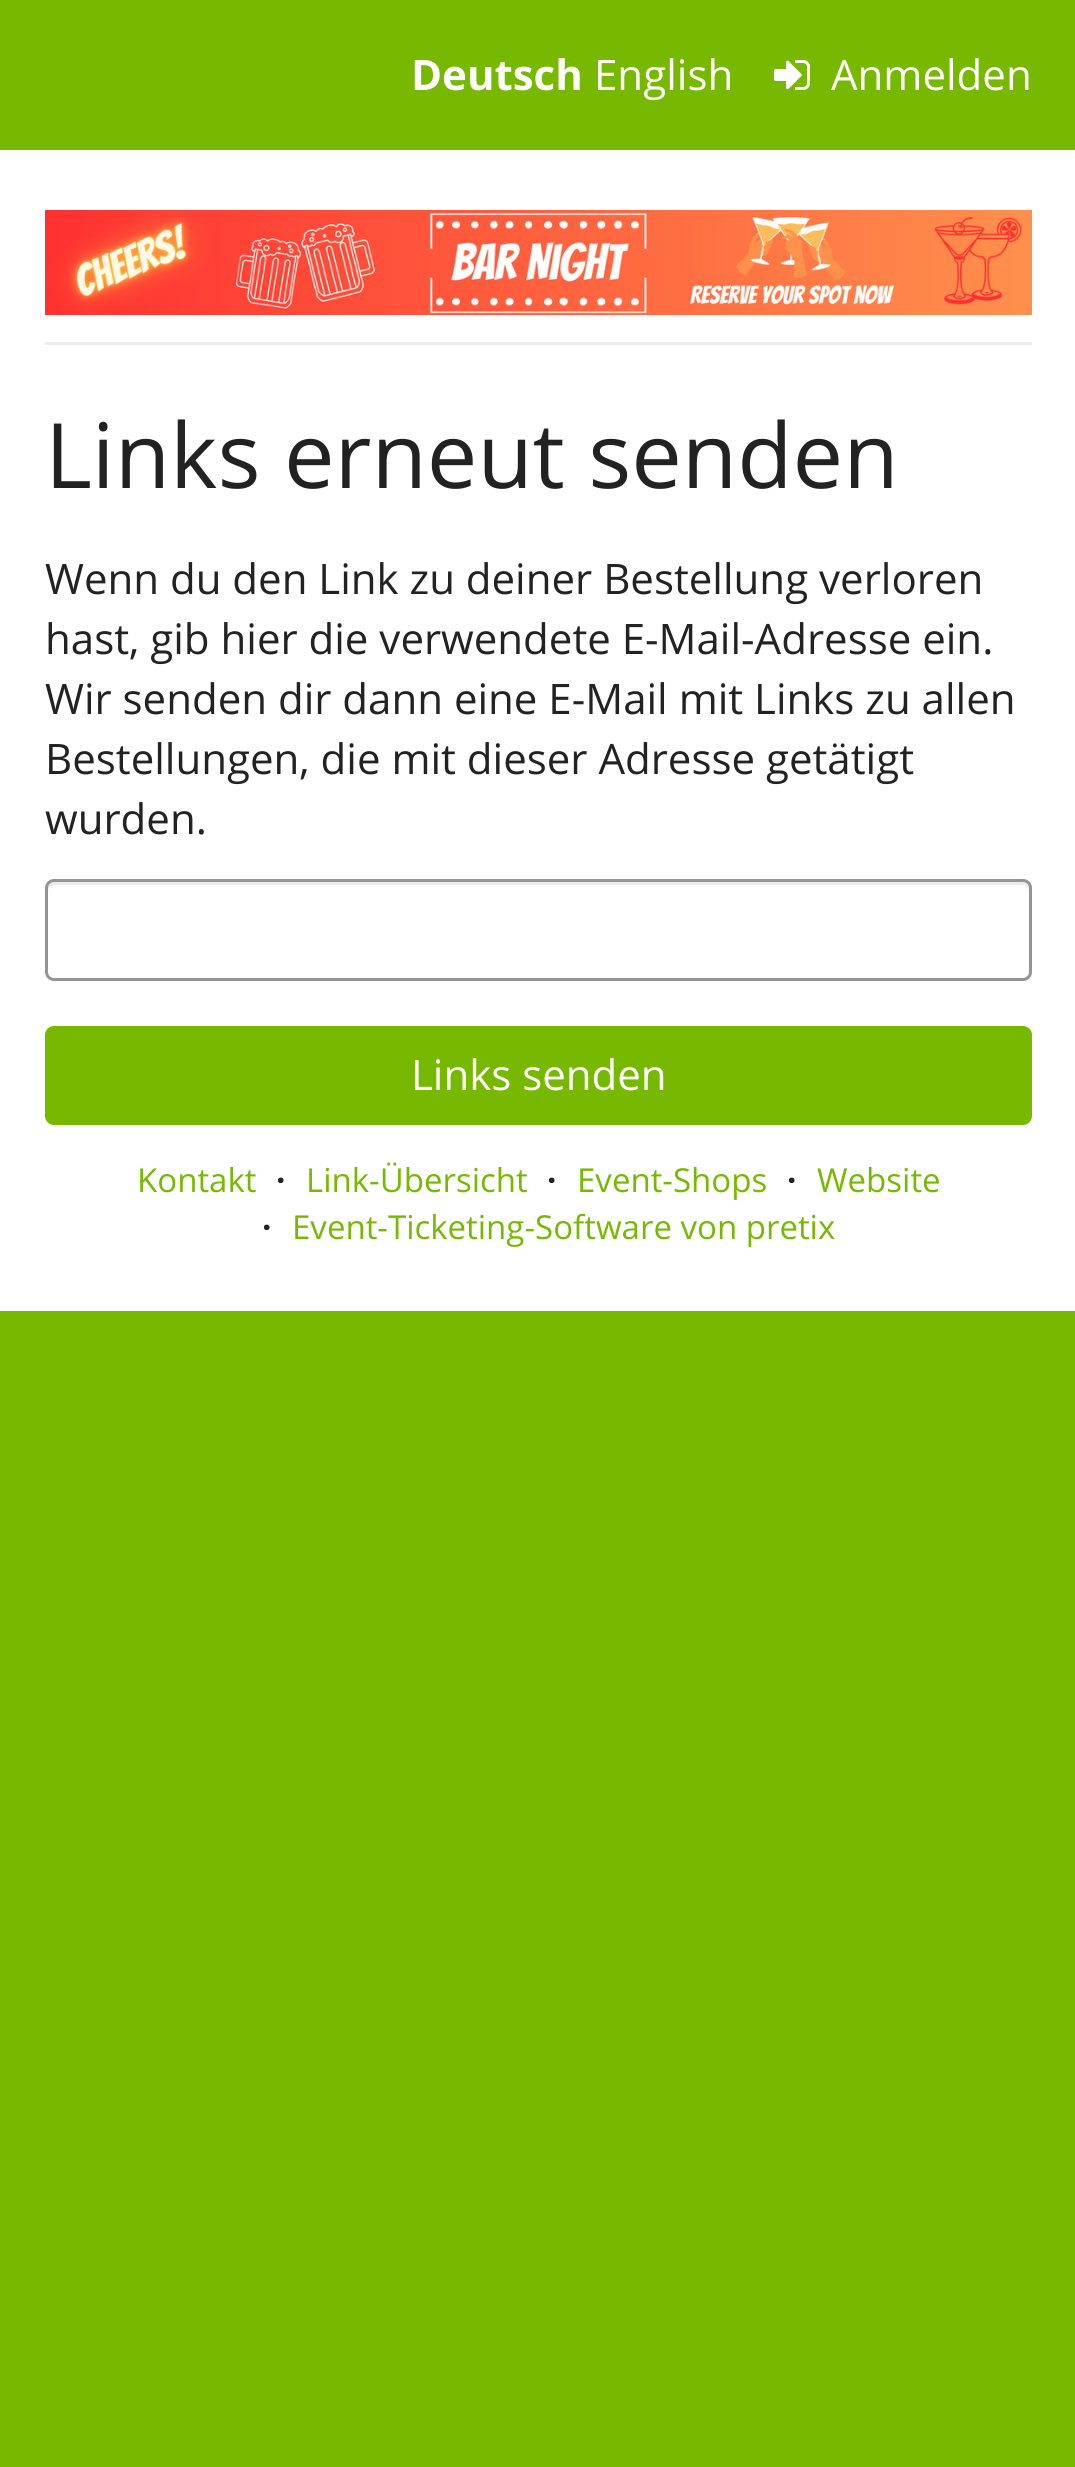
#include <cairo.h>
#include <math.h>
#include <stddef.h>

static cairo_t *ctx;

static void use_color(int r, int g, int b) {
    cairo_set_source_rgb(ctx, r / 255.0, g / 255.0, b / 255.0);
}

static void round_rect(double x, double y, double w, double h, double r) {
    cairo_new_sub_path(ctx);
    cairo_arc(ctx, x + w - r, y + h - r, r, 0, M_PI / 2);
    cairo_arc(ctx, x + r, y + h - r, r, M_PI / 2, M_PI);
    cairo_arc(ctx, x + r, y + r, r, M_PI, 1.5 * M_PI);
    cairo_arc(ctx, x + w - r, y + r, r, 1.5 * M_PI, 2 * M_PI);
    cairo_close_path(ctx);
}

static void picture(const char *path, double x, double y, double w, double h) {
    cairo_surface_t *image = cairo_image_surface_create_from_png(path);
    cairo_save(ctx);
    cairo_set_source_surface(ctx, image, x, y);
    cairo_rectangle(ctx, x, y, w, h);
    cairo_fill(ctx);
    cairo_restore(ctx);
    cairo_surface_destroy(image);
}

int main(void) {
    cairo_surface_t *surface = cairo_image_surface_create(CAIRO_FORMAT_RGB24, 1075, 2467);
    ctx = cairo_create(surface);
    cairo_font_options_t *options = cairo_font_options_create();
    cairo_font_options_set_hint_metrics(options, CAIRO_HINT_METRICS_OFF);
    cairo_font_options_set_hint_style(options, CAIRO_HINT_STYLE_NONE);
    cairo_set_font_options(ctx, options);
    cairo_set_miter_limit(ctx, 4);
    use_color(118, 185, 0);
    cairo_paint(ctx);
    cairo_select_font_face(ctx, "Open Sans", CAIRO_FONT_SLANT_NORMAL, CAIRO_FONT_WEIGHT_BOLD);
    cairo_set_font_size(ctx, 42);
    use_color(255, 255, 255);
    cairo_move_to(ctx, 411, 90);
    cairo_show_text(ctx, "Deutsch");
    cairo_select_font_face(ctx, "Open Sans", CAIRO_FONT_SLANT_NORMAL, CAIRO_FONT_WEIGHT_NORMAL);
    cairo_move_to(ctx, 594, 90);
    cairo_show_text(ctx, "English");
    picture("img1.png", 774, 60, 36, 30);
    cairo_move_to(ctx, 831, 90);
    cairo_show_text(ctx, "Anmelden");
    cairo_rectangle(ctx, 0, 150, 1075, 1161);
    cairo_fill(ctx);
    use_color(238, 238, 238);
    cairo_rectangle(ctx, 45, 342, 987, 3);
    cairo_fill(ctx);
    picture("img2.png", 45, 210, 987, 105);
    cairo_set_font_size(ctx, 90.25);
    use_color(34, 34, 34);
    cairo_move_to(ctx, 45, 488);
    cairo_show_text(ctx, "Links erneut senden");
    cairo_set_font_size(ctx, 42);
    cairo_move_to(ctx, 45, 594);
    cairo_show_text(ctx, "Wenn du den Link zu deiner Bestellung verloren");
    cairo_move_to(ctx, 45, 654);
    cairo_show_text(ctx, "hast, gib hier die verwendete E-Mail-Adresse ein.");
    cairo_move_to(ctx, 45, 714);
    cairo_show_text(ctx, "Wir senden dir dann eine E-Mail mit Links zu allen");
    cairo_move_to(ctx, 45, 774);
    cairo_show_text(ctx, "Bestellungen, die mit dieser Adresse getätigt");
    cairo_move_to(ctx, 45, 834);
    cairo_show_text(ctx, "wurden.");
    use_color(236, 236, 236);
    cairo_new_path(ctx);
    cairo_move_to(ctx, 54, 885);
    cairo_line_to(ctx, 1023, 885);
    cairo_curve_to(ctx, 1026, 885, 1029, 888, 1029, 891);
    cairo_line_to(ctx, 1029, 888);
    cairo_curve_to(ctx, 1029, 885, 1026, 882, 1023, 882);
    cairo_line_to(ctx, 54, 882);
    cairo_curve_to(ctx, 51, 882, 48, 885, 48, 888);
    cairo_line_to(ctx, 48, 891);
    cairo_curve_to(ctx, 48, 888, 51, 885, 54, 885);
    cairo_close_path(ctx);
    cairo_fill(ctx);
    round_rect(46.5, 880.5, 984, 99, 7.5);
    use_color(148, 148, 148);
    cairo_set_line_width(ctx, 3);
    cairo_stroke(ctx);
    use_color(118, 185, 0);
    round_rect(45, 1026, 987, 99, 9);
    cairo_fill(ctx);
    use_color(255, 255, 255);
    cairo_move_to(ctx, 411, 1090);
    cairo_show_text(ctx, "Links senden");
    cairo_set_font_size(ctx, 33);
    use_color(118, 185, 0);
    cairo_move_to(ctx, 137, 1192);
    cairo_show_text(ctx, "Kontakt");
    cairo_select_font_face(ctx, "Open Sans", CAIRO_FONT_SLANT_NORMAL, CAIRO_FONT_WEIGHT_BOLD);
    use_color(34, 34, 34);
    cairo_move_to(ctx, 276, 1192);
    cairo_show_text(ctx, "·");
    cairo_select_font_face(ctx, "Open Sans", CAIRO_FONT_SLANT_NORMAL, CAIRO_FONT_WEIGHT_NORMAL);
    use_color(118, 185, 0);
    cairo_move_to(ctx, 306, 1192);
    cairo_show_text(ctx, "Link-Übersicht");
    cairo_select_font_face(ctx, "Open Sans", CAIRO_FONT_SLANT_NORMAL, CAIRO_FONT_WEIGHT_BOLD);
    use_color(34, 34, 34);
    cairo_move_to(ctx, 547, 1192);
    cairo_show_text(ctx, "·");
    cairo_select_font_face(ctx, "Open Sans", CAIRO_FONT_SLANT_NORMAL, CAIRO_FONT_WEIGHT_NORMAL);
    use_color(118, 185, 0);
    cairo_move_to(ctx, 577, 1192);
    cairo_show_text(ctx, "Event-Shops");
    cairo_select_font_face(ctx, "Open Sans", CAIRO_FONT_SLANT_NORMAL, CAIRO_FONT_WEIGHT_BOLD);
    use_color(34, 34, 34);
    cairo_move_to(ctx, 787, 1192);
    cairo_show_text(ctx, "·");
    cairo_select_font_face(ctx, "Open Sans", CAIRO_FONT_SLANT_NORMAL, CAIRO_FONT_WEIGHT_NORMAL);
    use_color(118, 185, 0);
    cairo_move_to(ctx, 817, 1192);
    cairo_show_text(ctx, "Website");
    cairo_select_font_face(ctx, "Open Sans", CAIRO_FONT_SLANT_NORMAL, CAIRO_FONT_WEIGHT_BOLD);
    use_color(34, 34, 34);
    cairo_move_to(ctx, 262, 1239);
    cairo_show_text(ctx, "·");
    cairo_select_font_face(ctx, "Open Sans", CAIRO_FONT_SLANT_NORMAL, CAIRO_FONT_WEIGHT_NORMAL);
    use_color(118, 185, 0);
    cairo_move_to(ctx, 292, 1239);
    cairo_show_text(ctx, "Event-Ticketing-Software von pretix");
    cairo_surface_write_to_png(surface, "result.png");
    cairo_font_options_destroy(options);
    cairo_destroy(ctx);
    cairo_surface_destroy(surface);
    return 0;
}
